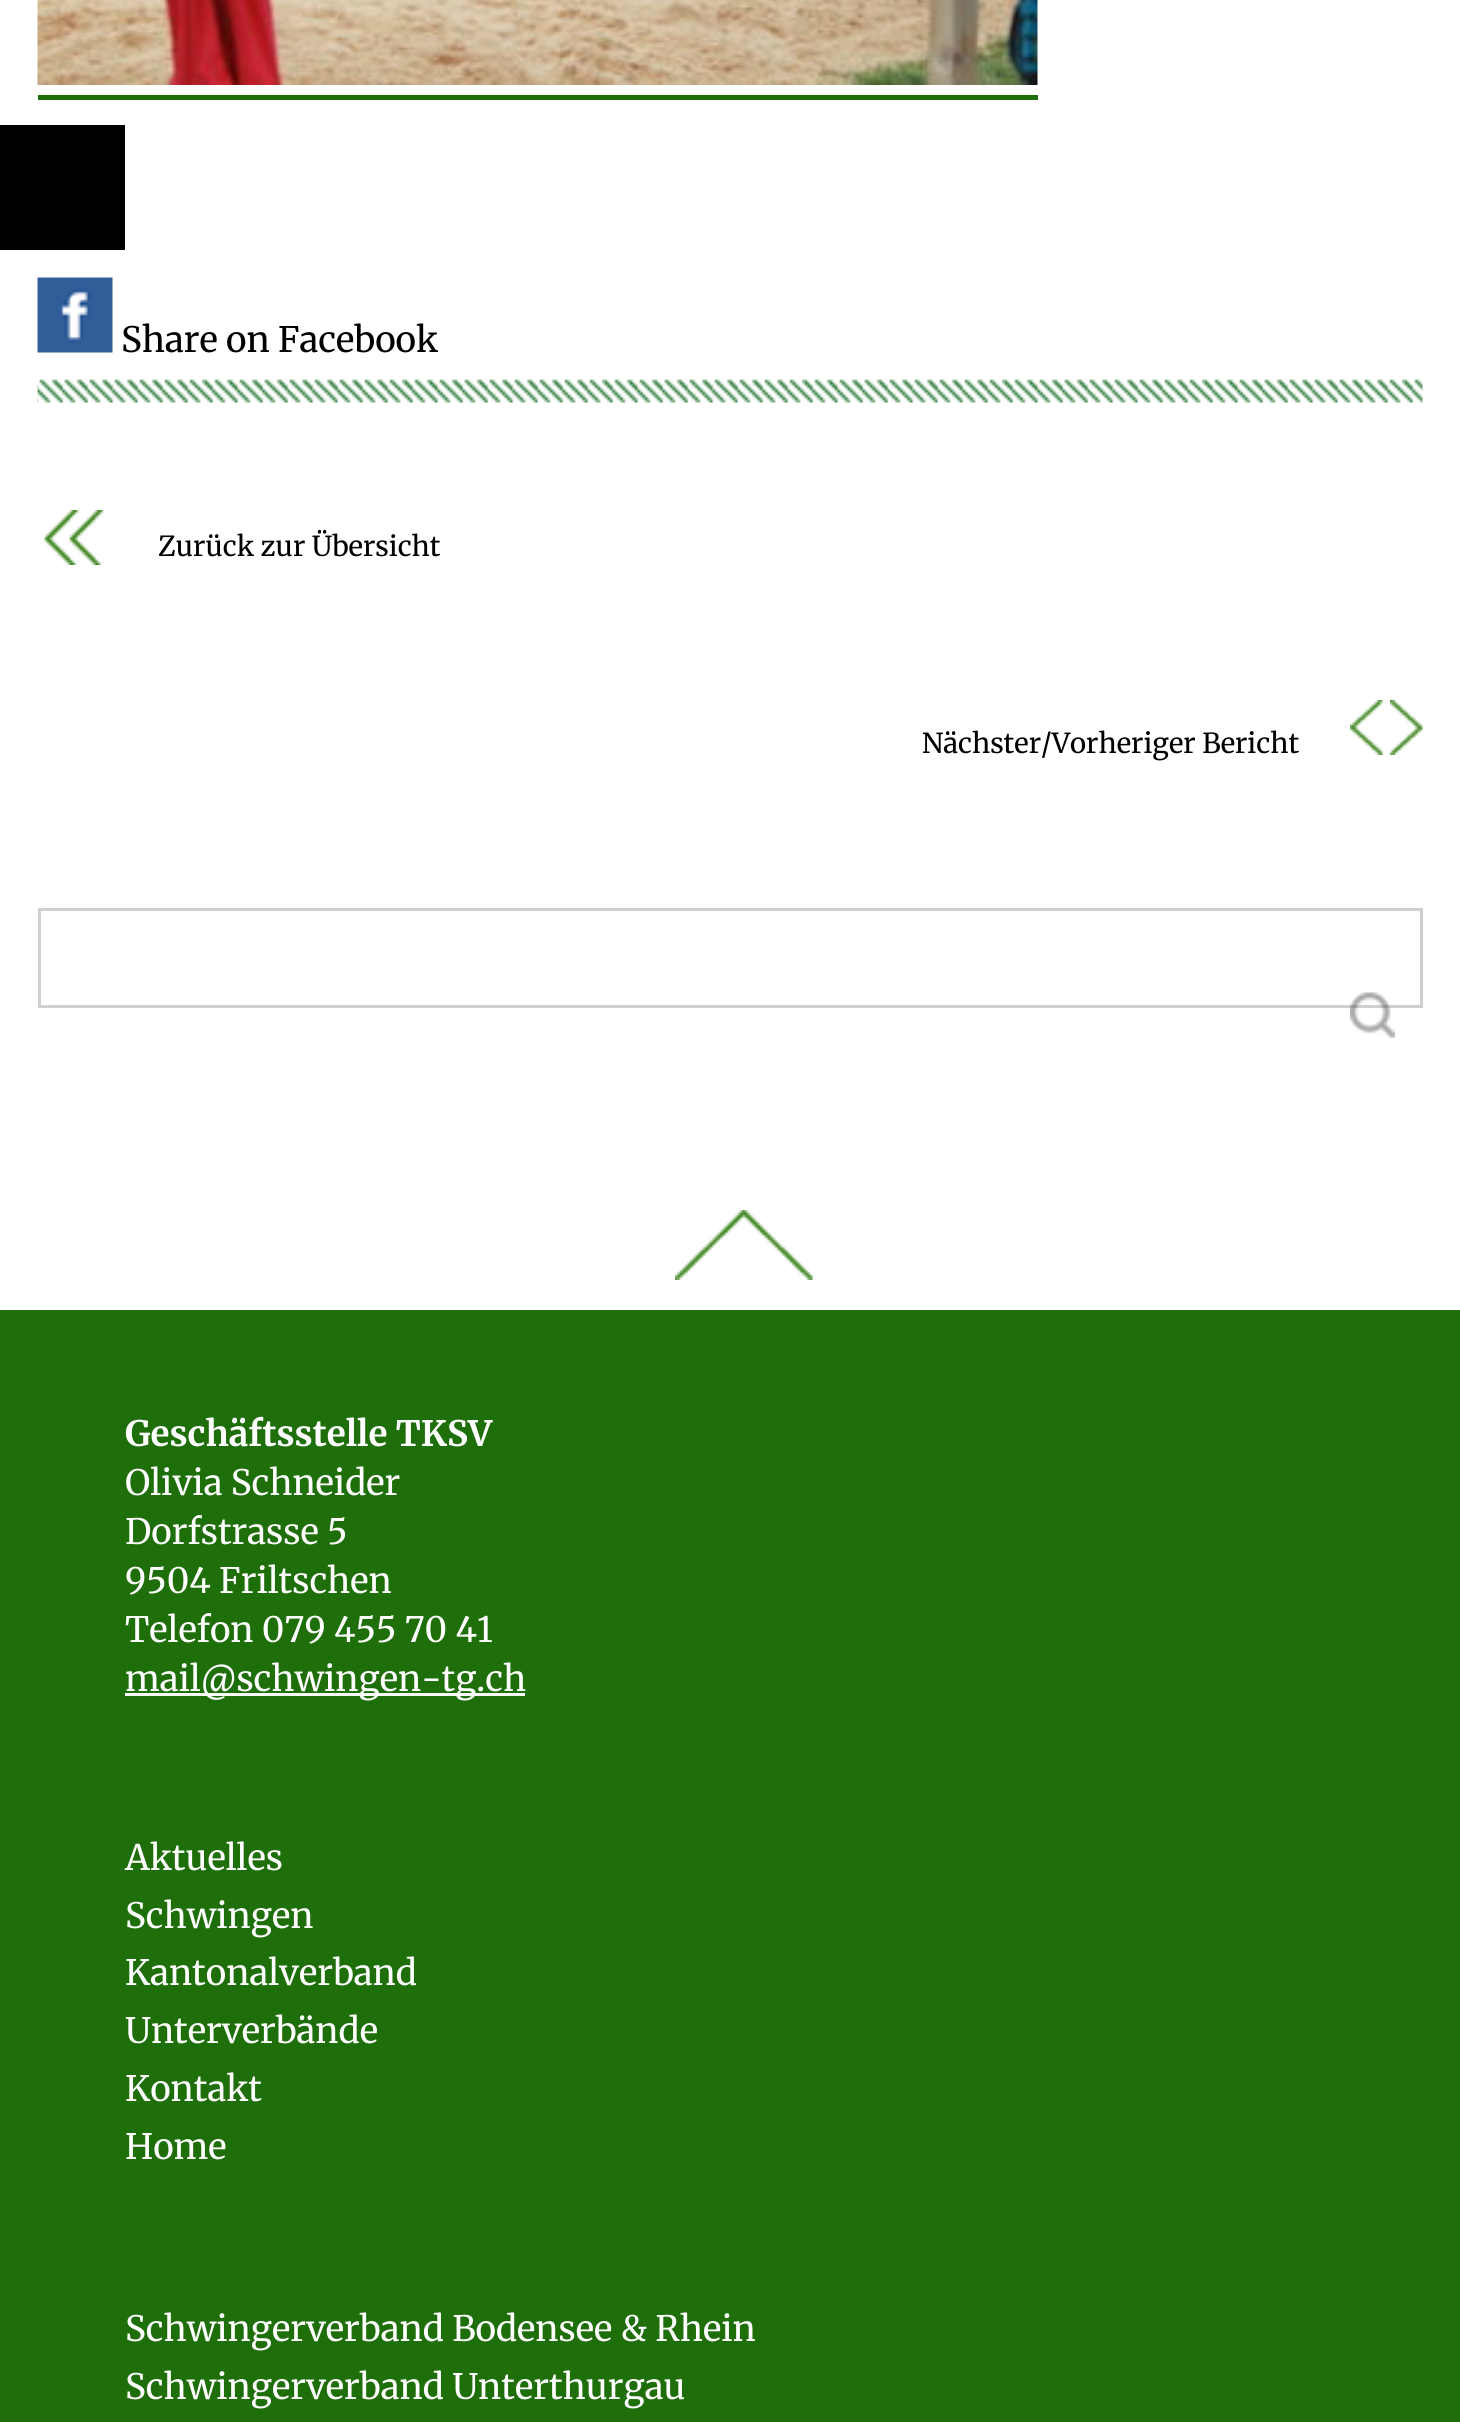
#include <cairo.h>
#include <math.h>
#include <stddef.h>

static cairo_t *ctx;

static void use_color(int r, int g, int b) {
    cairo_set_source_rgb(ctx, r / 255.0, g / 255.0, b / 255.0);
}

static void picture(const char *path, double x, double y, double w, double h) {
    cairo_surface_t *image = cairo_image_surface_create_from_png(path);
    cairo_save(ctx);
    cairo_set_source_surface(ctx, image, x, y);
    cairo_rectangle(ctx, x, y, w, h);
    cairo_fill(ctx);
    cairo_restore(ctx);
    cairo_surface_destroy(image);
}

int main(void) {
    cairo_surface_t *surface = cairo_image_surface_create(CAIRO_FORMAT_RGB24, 1460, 2422);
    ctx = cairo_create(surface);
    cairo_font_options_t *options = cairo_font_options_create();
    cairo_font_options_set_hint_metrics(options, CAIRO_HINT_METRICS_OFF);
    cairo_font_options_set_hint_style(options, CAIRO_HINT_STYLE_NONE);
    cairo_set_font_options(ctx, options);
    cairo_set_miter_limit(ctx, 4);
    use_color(255, 255, 255);
    cairo_paint(ctx);
    use_color(0, 0, 0);
    cairo_rectangle(ctx, 0, 125, 125, 125);
    cairo_fill(ctx);
    use_color(30, 110, 10);
    cairo_rectangle(ctx, 38, 95, 1000, 5);
    cairo_fill(ctx);
    picture("img1.png", 37, 0, 1001, 85);
    picture("img2.png", 37, 277, 76, 76);
    cairo_select_font_face(ctx, "Merriweather Light", CAIRO_FONT_SLANT_NORMAL, CAIRO_FONT_WEIGHT_NORMAL);
    cairo_set_font_size(ctx, 35);
    use_color(0, 0, 0);
    cairo_move_to(ctx, 121, 352);
    cairo_show_text(ctx, "Share on Facebook");
    picture("img3.png", 37, 379, 1386, 24);
    picture("img4.png", 44, 510, 61, 55);
    cairo_set_font_size(ctx, 27.5);
    cairo_move_to(ctx, 158, 556);
    cairo_show_text(ctx, "Zurück zur Übersicht");
    cairo_move_to(ctx, 922, 753);
    cairo_show_text(ctx, "Nächster/Vorheriger Bericht");
    picture("img5.png", 1350, 700, 33, 55);
    picture("img6.png", 1390, 700, 33, 55);
    cairo_rectangle(ctx, 39.5, 909.5, 1382, 97);
    use_color(208, 208, 208);
    cairo_set_line_width(ctx, 3);
    cairo_stroke(ctx);
    picture("img7.png", 1350, 992, 45, 46);
    use_color(30, 110, 10);
    cairo_rectangle(ctx, 0, 1310, 1460, 1112);
    cairo_fill(ctx);
    picture("img8.png", 675, 1210, 138, 70);
    cairo_select_font_face(ctx, "Merriweather", CAIRO_FONT_SLANT_NORMAL, CAIRO_FONT_WEIGHT_BOLD);
    cairo_set_font_size(ctx, 35);
    use_color(255, 255, 255);
    cairo_move_to(ctx, 125, 1446);
    cairo_show_text(ctx, "Geschäftsstelle TKSV");
    cairo_select_font_face(ctx, "Merriweather Light", CAIRO_FONT_SLANT_NORMAL, CAIRO_FONT_WEIGHT_NORMAL);
    cairo_move_to(ctx, 125, 1495);
    cairo_show_text(ctx, "Olivia Schneider");
    cairo_move_to(ctx, 125, 1544);
    cairo_show_text(ctx, "Dorfstrasse 5");
    cairo_move_to(ctx, 125, 1593);
    cairo_show_text(ctx, "9504 Friltschen");
    cairo_move_to(ctx, 125, 1642);
    cairo_show_text(ctx, "Telefon 079 455 70 41");
    cairo_rectangle(ctx, 125, 1693, 400, 3);
    cairo_fill(ctx);
    cairo_move_to(ctx, 125, 1691);
    cairo_show_text(ctx, "mail@schwingen-tg.ch");
    cairo_move_to(ctx, 125, 1870);
    cairo_show_text(ctx, "Aktuelles");
    cairo_move_to(ctx, 125, 1928);
    cairo_show_text(ctx, "Schwingen");
    cairo_move_to(ctx, 125, 1985);
    cairo_show_text(ctx, "Kantonalverband");
    cairo_move_to(ctx, 125, 2043);
    cairo_show_text(ctx, "Unterverbände");
    cairo_move_to(ctx, 125, 2101);
    cairo_show_text(ctx, "Kontakt");
    cairo_move_to(ctx, 125, 2159);
    cairo_show_text(ctx, "Home");
    cairo_move_to(ctx, 125, 2341);
    cairo_show_text(ctx, "Schwingerverband Bodensee & Rhein");
    cairo_move_to(ctx, 125, 2399);
    cairo_show_text(ctx, "Schwingerverband Unterthurgau");
    cairo_surface_write_to_png(surface, "result.png");
    cairo_font_options_destroy(options);
    cairo_destroy(ctx);
    cairo_surface_destroy(surface);
    return 0;
}
